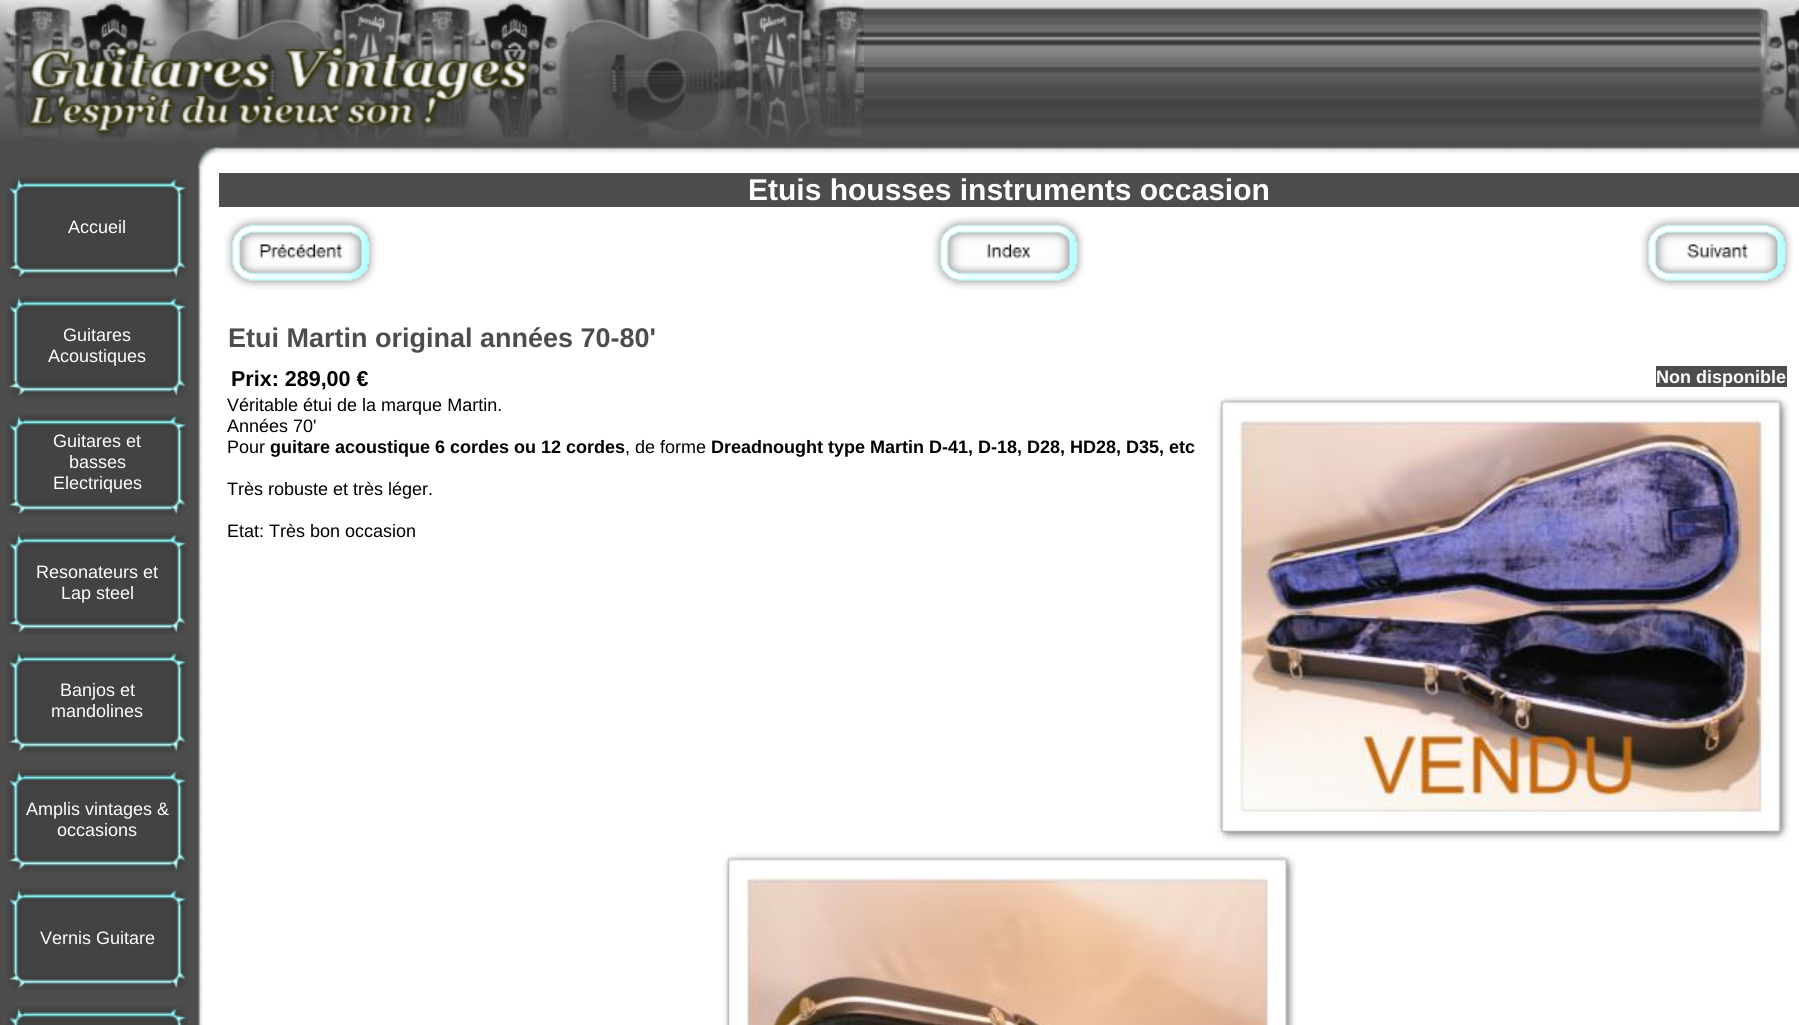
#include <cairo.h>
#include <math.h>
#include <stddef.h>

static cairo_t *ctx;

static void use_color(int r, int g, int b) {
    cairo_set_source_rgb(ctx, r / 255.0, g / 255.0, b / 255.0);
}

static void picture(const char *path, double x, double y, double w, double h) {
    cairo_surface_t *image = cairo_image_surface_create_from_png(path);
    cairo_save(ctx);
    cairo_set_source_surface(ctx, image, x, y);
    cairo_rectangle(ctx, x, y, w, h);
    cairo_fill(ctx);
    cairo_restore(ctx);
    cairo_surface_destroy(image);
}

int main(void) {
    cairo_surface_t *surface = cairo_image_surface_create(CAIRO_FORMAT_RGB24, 1799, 1025);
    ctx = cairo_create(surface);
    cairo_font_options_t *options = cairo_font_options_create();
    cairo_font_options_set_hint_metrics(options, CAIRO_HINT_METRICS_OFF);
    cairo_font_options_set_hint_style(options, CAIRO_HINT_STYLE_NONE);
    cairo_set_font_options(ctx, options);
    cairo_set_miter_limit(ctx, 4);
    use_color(255, 255, 255);
    cairo_paint(ctx);
    picture("img1.png", 0, 0, 1799, 147);
    picture("img2.png", 0, 0, 864, 142);
    picture("img3.png", 1759, 0, 40, 136);
    use_color(77, 77, 77);
    cairo_rectangle(ctx, 0, 147, 198, 878);
    cairo_fill(ctx);
    picture("img5.png", 217, 147, 1582, 6);
    picture("img12.png", 198, 166, 5, 859);
    picture("img4.png", 198, 147, 20, 20);
    picture("img6.png", 7, 177, 181, 102);
    picture("img7.png", 9, 178, 177, 99);
    cairo_select_font_face(ctx, "Liberation Sans", CAIRO_FONT_SLANT_NORMAL, CAIRO_FONT_WEIGHT_NORMAL);
    cairo_set_font_size(ctx, 18);
    use_color(255, 255, 255);
    cairo_move_to(ctx, 68, 233);
    cairo_show_text(ctx, "Accueil");
    picture("img8.png", 7, 295, 181, 103);
    picture("img9.png", 9, 297, 177, 99);
    cairo_move_to(ctx, 63, 341);
    cairo_show_text(ctx, "Guitares");
    cairo_move_to(ctx, 48, 362);
    cairo_show_text(ctx, "Acoustiques");
    picture("img6.png", 7, 414, 181, 102);
    picture("img7.png", 9, 415, 177, 99);
    cairo_move_to(ctx, 53, 447);
    cairo_show_text(ctx, "Guitares et");
    cairo_move_to(ctx, 69, 468);
    cairo_show_text(ctx, "basses");
    cairo_move_to(ctx, 53, 489);
    cairo_show_text(ctx, "Electriques");
    picture("img8.png", 7, 532, 181, 103);
    picture("img9.png", 9, 534, 177, 99);
    cairo_move_to(ctx, 36, 578);
    cairo_show_text(ctx, "Resonateurs et");
    cairo_move_to(ctx, 61, 599);
    cairo_show_text(ctx, "Lap steel");
    picture("img6.png", 7, 651, 181, 102);
    picture("img7.png", 9, 652, 177, 99);
    cairo_move_to(ctx, 60, 696);
    cairo_show_text(ctx, "Banjos et");
    cairo_move_to(ctx, 51, 717);
    cairo_show_text(ctx, "mandolines");
    picture("img8.png", 7, 769, 181, 103);
    picture("img9.png", 9, 771, 177, 99);
    cairo_move_to(ctx, 26, 815);
    cairo_show_text(ctx, "Amplis vintages &");
    cairo_move_to(ctx, 57, 836);
    cairo_show_text(ctx, "occasions");
    picture("img6.png", 7, 888, 181, 102);
    picture("img7.png", 9, 889, 177, 99);
    cairo_move_to(ctx, 40, 944);
    cairo_show_text(ctx, "Vernis Guitare");
    picture("img10.png", 7, 1006, 181, 19);
    picture("img11.png", 9, 1008, 177, 17);
    use_color(77, 77, 77);
    cairo_rectangle(ctx, 219, 173, 1580, 34);
    cairo_fill(ctx);
    cairo_select_font_face(ctx, "Liberation Sans", CAIRO_FONT_SLANT_NORMAL, CAIRO_FONT_WEIGHT_BOLD);
    cairo_set_font_size(ctx, 30);
    use_color(255, 255, 255);
    cairo_move_to(ctx, 748, 200);
    cairo_show_text(ctx, "Etuis housses instruments occasion");
    picture("img13.png", 224, 216, 153, 73);
    picture("img14.png", 932, 216, 153, 73);
    picture("img15.png", 1640, 216, 153, 73);
    cairo_set_font_size(ctx, 27);
    use_color(77, 77, 77);
    cairo_move_to(ctx, 228, 347);
    cairo_show_text(ctx, "Etui Martin original années 70-80'");
    cairo_set_font_size(ctx, 21.5);
    use_color(0, 0, 0);
    cairo_move_to(ctx, 231, 386);
    cairo_show_text(ctx, "Prix: 289,00 €");
    use_color(77, 77, 77);
    cairo_rectangle(ctx, 1656, 366, 131, 21);
    cairo_fill(ctx);
    cairo_set_font_size(ctx, 18);
    use_color(255, 255, 255);
    cairo_move_to(ctx, 1656, 383);
    cairo_show_text(ctx, "Non disponible");
    cairo_select_font_face(ctx, "Liberation Sans", CAIRO_FONT_SLANT_NORMAL, CAIRO_FONT_WEIGHT_NORMAL);
    use_color(0, 0, 0);
    cairo_move_to(ctx, 227, 411);
    cairo_show_text(ctx, "Véritable étui de la marque Martin.");
    picture("img16.png", 1215, 395, 575, 447);
    cairo_move_to(ctx, 227, 432);
    cairo_show_text(ctx, "Années 70'");
    cairo_move_to(ctx, 227, 453);
    cairo_show_text(ctx, "Pour");
    cairo_select_font_face(ctx, "Liberation Sans", CAIRO_FONT_SLANT_NORMAL, CAIRO_FONT_WEIGHT_BOLD);
    cairo_move_to(ctx, 270, 453);
    cairo_show_text(ctx, "guitare acoustique 6 cordes ou 12 cordes");
    cairo_select_font_face(ctx, "Liberation Sans", CAIRO_FONT_SLANT_NORMAL, CAIRO_FONT_WEIGHT_NORMAL);
    cairo_move_to(ctx, 625, 453);
    cairo_show_text(ctx, ", de forme");
    cairo_select_font_face(ctx, "Liberation Sans", CAIRO_FONT_SLANT_NORMAL, CAIRO_FONT_WEIGHT_BOLD);
    cairo_move_to(ctx, 711, 453);
    cairo_show_text(ctx, "Dreadnought type Martin D-41, D-18, D28, HD28, D35, etc");
    cairo_select_font_face(ctx, "Liberation Sans", CAIRO_FONT_SLANT_NORMAL, CAIRO_FONT_WEIGHT_NORMAL);
    cairo_move_to(ctx, 227, 495);
    cairo_show_text(ctx, "Très robuste et très léger.");
    cairo_move_to(ctx, 227, 537);
    cairo_show_text(ctx, "Etat: Très bon occasion");
    picture("img17.png", 722, 852, 574, 173);
    cairo_surface_write_to_png(surface, "result.png");
    cairo_font_options_destroy(options);
    cairo_destroy(ctx);
    cairo_surface_destroy(surface);
    return 0;
}
